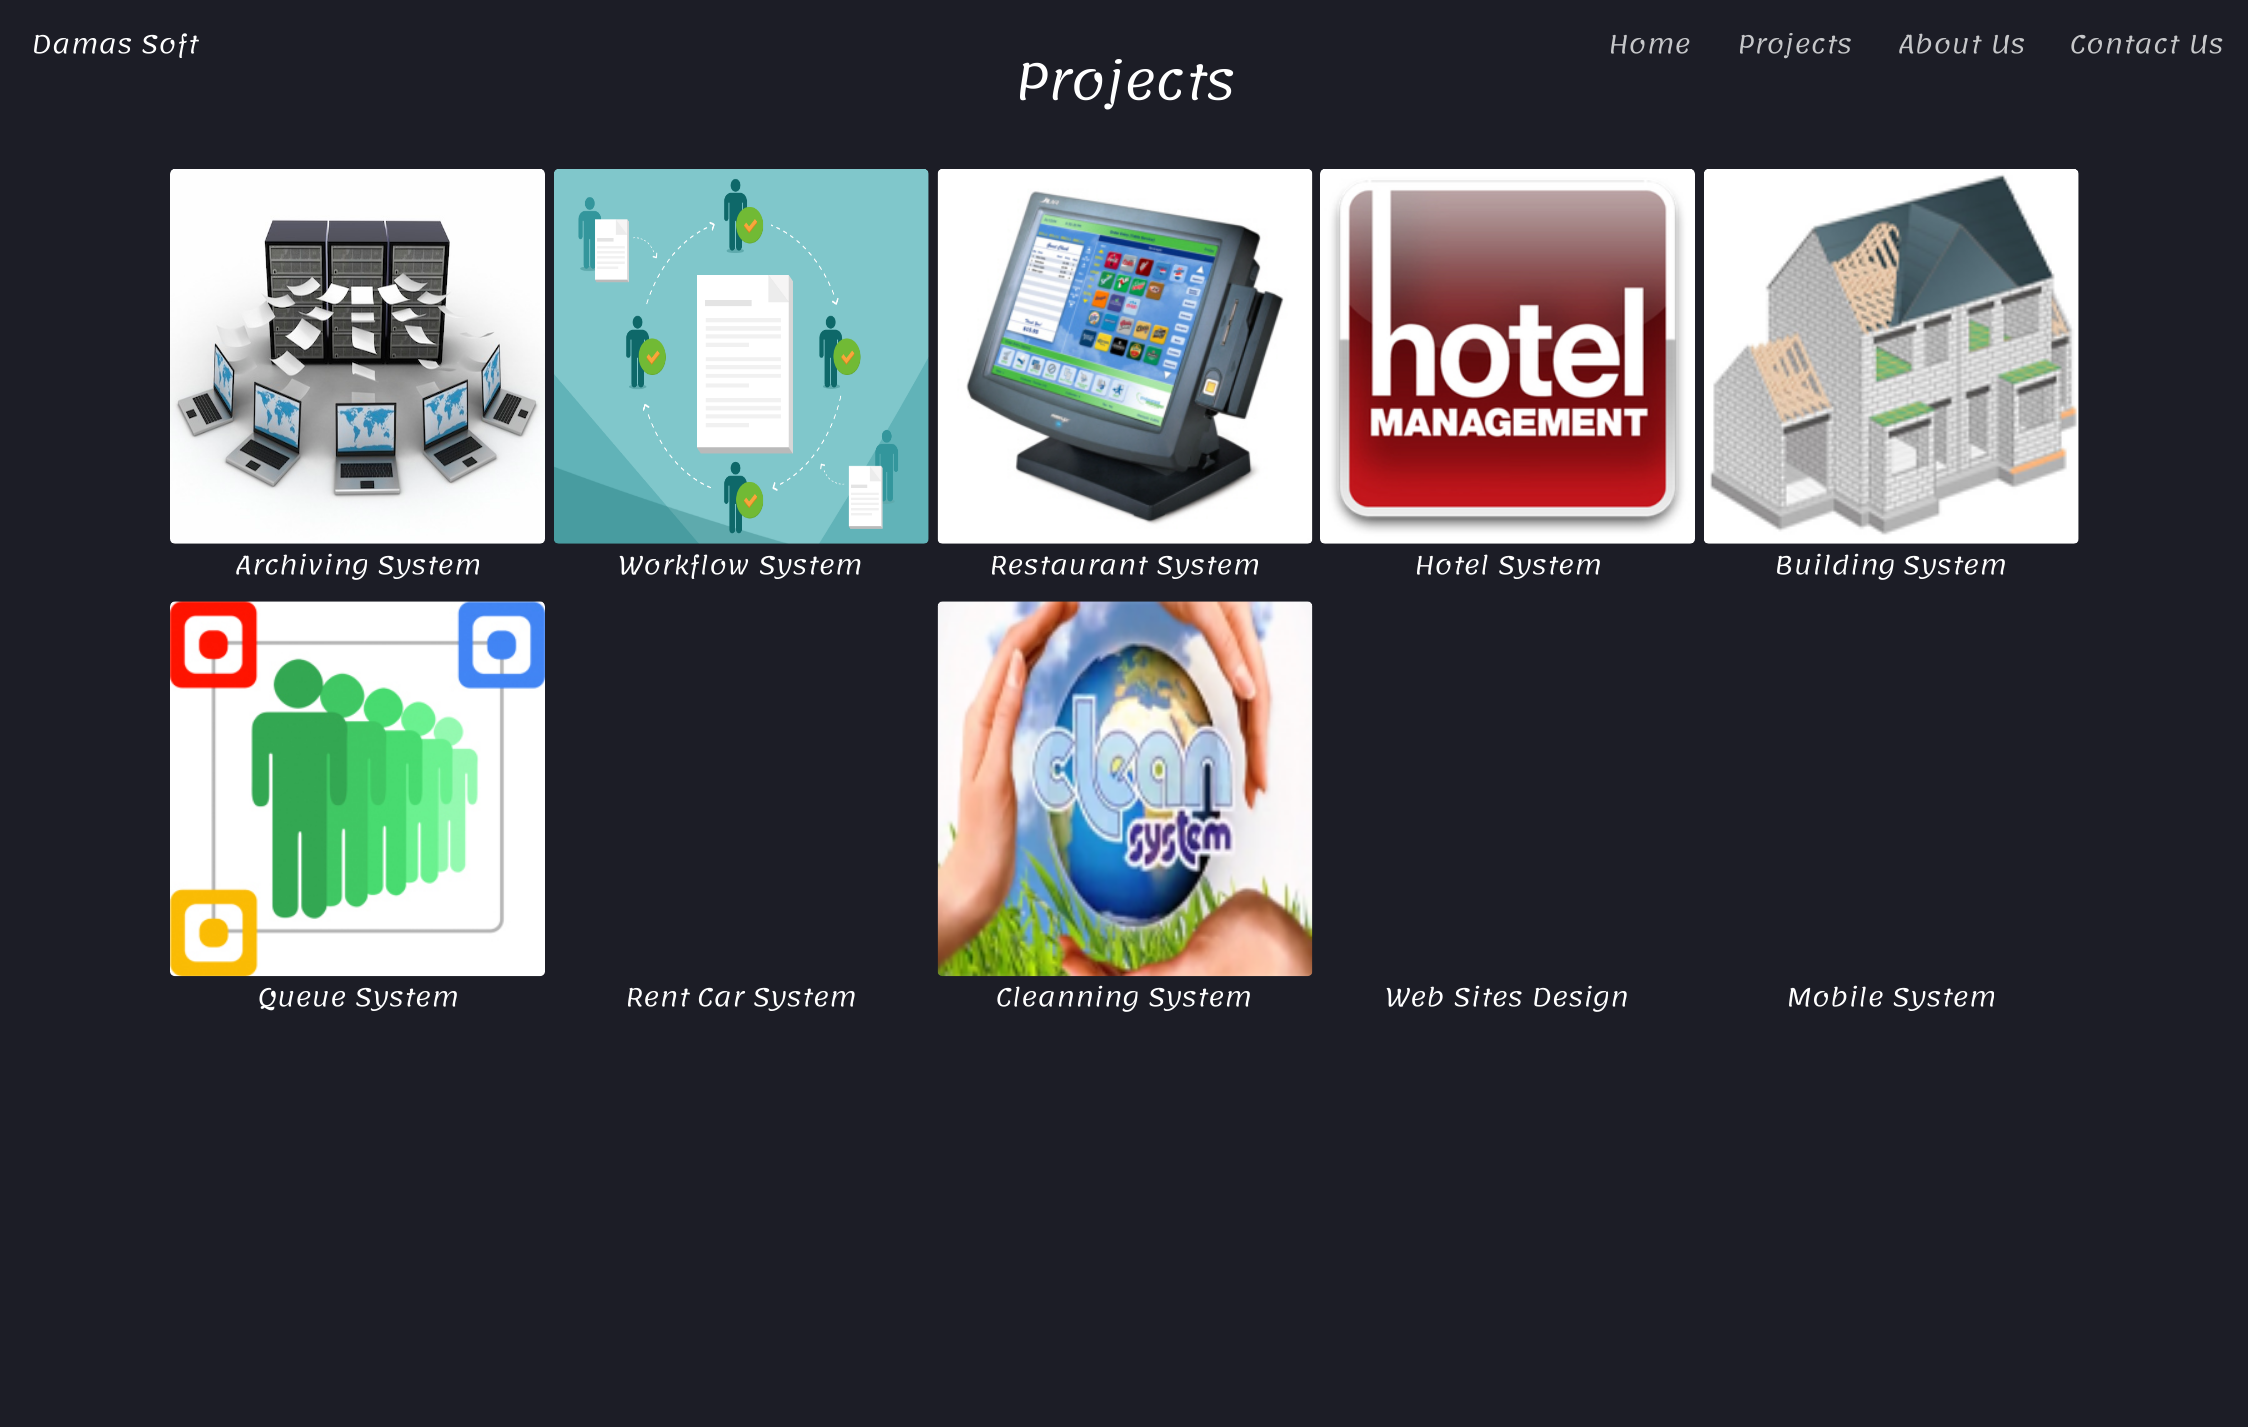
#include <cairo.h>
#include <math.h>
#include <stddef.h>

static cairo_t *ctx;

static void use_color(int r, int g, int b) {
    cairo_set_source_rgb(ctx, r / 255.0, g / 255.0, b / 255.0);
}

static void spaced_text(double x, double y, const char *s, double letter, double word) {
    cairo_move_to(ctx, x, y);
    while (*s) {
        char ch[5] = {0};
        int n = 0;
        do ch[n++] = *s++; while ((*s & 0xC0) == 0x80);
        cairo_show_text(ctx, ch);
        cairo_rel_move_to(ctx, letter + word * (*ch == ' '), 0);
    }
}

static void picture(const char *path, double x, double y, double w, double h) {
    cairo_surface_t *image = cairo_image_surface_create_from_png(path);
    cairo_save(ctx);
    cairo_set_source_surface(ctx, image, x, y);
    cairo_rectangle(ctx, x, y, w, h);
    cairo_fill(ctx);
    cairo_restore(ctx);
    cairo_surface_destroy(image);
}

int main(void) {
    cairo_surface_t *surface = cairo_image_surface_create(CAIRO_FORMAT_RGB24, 2248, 1427);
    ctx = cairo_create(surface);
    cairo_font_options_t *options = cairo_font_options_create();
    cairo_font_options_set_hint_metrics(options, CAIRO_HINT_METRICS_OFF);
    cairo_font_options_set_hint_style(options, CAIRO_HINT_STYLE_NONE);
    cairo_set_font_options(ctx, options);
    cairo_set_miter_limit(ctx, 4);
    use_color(28, 29, 38);
    cairo_paint(ctx);
    cairo_select_font_face(ctx, "Lemonada Light", CAIRO_FONT_SLANT_NORMAL, CAIRO_FONT_WEIGHT_NORMAL);
    cairo_set_font_size(ctx, 25);
    use_color(255, 255, 255);
    cairo_move_to(ctx, 31, 53);
    cairo_show_text(ctx, "Damas Soft");
    use_color(198, 199, 201);
    cairo_move_to(ctx, 1608, 53);
    cairo_show_text(ctx, "Home");
    cairo_move_to(ctx, 1737, 53);
    cairo_show_text(ctx, "Projects");
    spaced_text(1898, 53, "About Us", 0, 1);
    spaced_text(2070, 53, "Contact Us", 0, 1);
    cairo_set_font_size(ctx, 50);
    use_color(255, 255, 255);
    spaced_text(1014, 99, "Projects", -1.25, 0);
    picture("img1.png", 170, 169, 375, 375);
    cairo_set_font_size(ctx, 25);
    cairo_move_to(ctx, 235, 574);
    cairo_show_text(ctx, "Archiving System");
    picture("img2.png", 554, 169, 375, 375);
    cairo_move_to(ctx, 619, 574);
    cairo_show_text(ctx, "Workflow System");
    picture("img3.png", 937, 169, 376, 375);
    cairo_move_to(ctx, 989, 574);
    cairo_show_text(ctx, "Restaurant System");
    picture("img4.png", 1320, 169, 375, 375);
    cairo_move_to(ctx, 1414, 574);
    cairo_show_text(ctx, "Hotel System");
    picture("img5.png", 1704, 169, 375, 375);
    spaced_text(1774, 574, "Building System", 0, -1);
    picture("img6.png", 170, 601, 375, 376);
    cairo_move_to(ctx, 258, 1006);
    cairo_show_text(ctx, "Queue System");
    cairo_move_to(ctx, 625, 1006);
    cairo_show_text(ctx, "Rent Car System");
    picture("img7.png", 937, 601, 376, 376);
    cairo_move_to(ctx, 996, 1006);
    cairo_show_text(ctx, "Cleanning System");
    cairo_move_to(ctx, 1386, 1006);
    cairo_show_text(ctx, "Web Sites Design");
    cairo_move_to(ctx, 1786, 1006);
    cairo_show_text(ctx, "Mobile System");
    cairo_surface_write_to_png(surface, "result.png");
    cairo_font_options_destroy(options);
    cairo_destroy(ctx);
    cairo_surface_destroy(surface);
    return 0;
}
